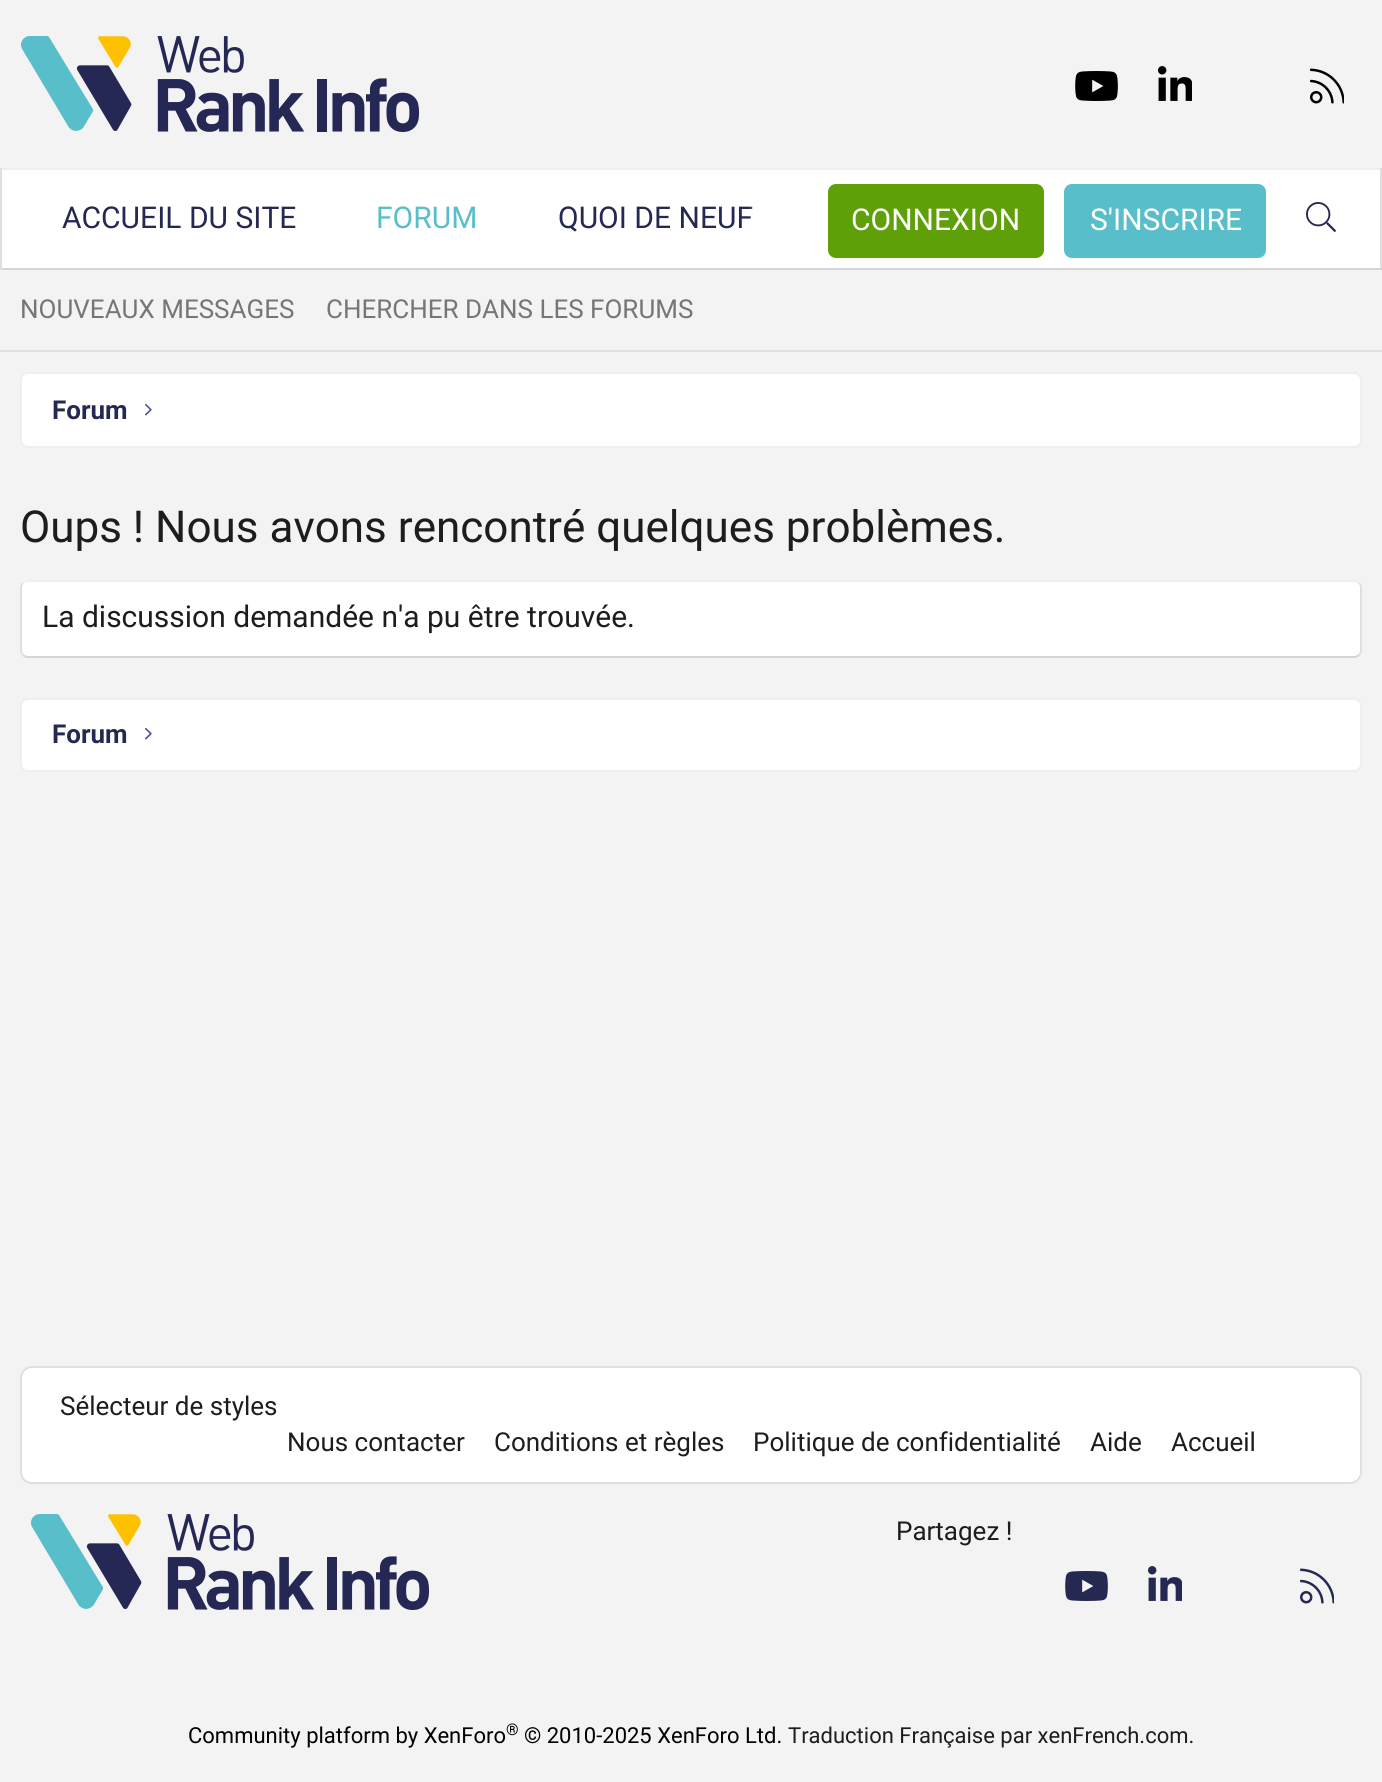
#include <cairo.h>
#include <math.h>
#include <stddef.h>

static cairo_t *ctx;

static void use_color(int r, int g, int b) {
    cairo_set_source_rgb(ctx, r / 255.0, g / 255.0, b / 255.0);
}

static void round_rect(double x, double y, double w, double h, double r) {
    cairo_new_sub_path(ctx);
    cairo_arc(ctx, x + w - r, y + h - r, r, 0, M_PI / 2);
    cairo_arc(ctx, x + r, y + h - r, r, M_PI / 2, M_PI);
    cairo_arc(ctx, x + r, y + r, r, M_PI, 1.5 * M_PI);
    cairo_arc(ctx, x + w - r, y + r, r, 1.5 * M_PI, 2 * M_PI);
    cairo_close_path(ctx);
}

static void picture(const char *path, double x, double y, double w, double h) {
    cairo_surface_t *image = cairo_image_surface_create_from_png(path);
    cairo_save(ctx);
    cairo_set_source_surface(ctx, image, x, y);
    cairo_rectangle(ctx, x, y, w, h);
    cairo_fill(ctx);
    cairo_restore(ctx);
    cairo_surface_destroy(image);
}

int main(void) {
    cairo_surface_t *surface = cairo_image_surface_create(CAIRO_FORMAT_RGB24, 1382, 1782);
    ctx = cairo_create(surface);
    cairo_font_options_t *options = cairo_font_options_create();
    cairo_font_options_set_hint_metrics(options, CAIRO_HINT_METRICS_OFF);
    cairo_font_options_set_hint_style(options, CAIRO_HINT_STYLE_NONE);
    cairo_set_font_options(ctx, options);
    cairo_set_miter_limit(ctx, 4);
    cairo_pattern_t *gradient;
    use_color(243, 243, 243);
    cairo_paint(ctx);
    picture("img1.png", 20, 36, 400, 96);
    picture("img2.png", 1075, 71, 43, 30);
    picture("img3.png", 1158, 66, 34, 35);
    picture("img4.png", 1310, 68, 34, 36);
    use_color(255, 255, 255);
    cairo_rectangle(ctx, 2, 170, 1378, 98);
    cairo_fill(ctx);
    use_color(238, 238, 238);
    cairo_rectangle(ctx, 0, 168, 1382, 2);
    cairo_fill(ctx);
    use_color(223, 223, 223);
    cairo_rectangle(ctx, 1380, 168, 2, 102);
    cairo_fill(ctx);
    use_color(213, 213, 213);
    cairo_rectangle(ctx, 0, 268, 1382, 2);
    cairo_fill(ctx);
    use_color(223, 223, 223);
    cairo_rectangle(ctx, 0, 168, 2, 102);
    cairo_fill(ctx);
    cairo_select_font_face(ctx, "Roboto", CAIRO_FONT_SLANT_NORMAL, CAIRO_FONT_WEIGHT_NORMAL);
    cairo_set_font_size(ctx, 30);
    use_color(37, 41, 81);
    cairo_move_to(ctx, 62, 228);
    cairo_show_text(ctx, "ACCUEIL DU SITE");
    use_color(88, 191, 202);
    cairo_move_to(ctx, 376, 228);
    cairo_show_text(ctx, "FORUM");
    use_color(37, 41, 81);
    cairo_move_to(ctx, 558, 228);
    cairo_show_text(ctx, "QUOI DE NEUF");
    gradient = cairo_pattern_create_linear(748, 219, 828, 219);
    cairo_pattern_add_color_stop_rgba(gradient, 0, 1, 1, 1, 0);
    cairo_pattern_add_color_stop_rgba(gradient, 0.33, 1, 1, 1, 1);
    cairo_set_source(ctx, gradient);
    cairo_pattern_destroy(gradient);
    cairo_rectangle(ctx, 749, 206, 3, 13);
    cairo_fill(ctx);
    use_color(95, 160, 8);
    round_rect(828, 184, 216, 74, 8);
    cairo_fill(ctx);
    use_color(255, 255, 255);
    cairo_move_to(ctx, 851, 230);
    cairo_show_text(ctx, "CONNEXION");
    use_color(88, 191, 202);
    round_rect(1064, 184, 202, 74, 8);
    cairo_fill(ctx);
    use_color(255, 255, 255);
    cairo_move_to(ctx, 1090, 230);
    cairo_show_text(ctx, "S'INSCRIRE");
    picture("img5.png", 1306, 202, 30, 30);
    use_color(223, 223, 223);
    cairo_rectangle(ctx, 0, 350, 1382, 2);
    cairo_fill(ctx);
    cairo_set_font_size(ctx, 26);
    use_color(118, 118, 118);
    cairo_move_to(ctx, 20, 318);
    cairo_show_text(ctx, "NOUVEAUX MESSAGES");
    cairo_move_to(ctx, 326, 318);
    cairo_show_text(ctx, "CHERCHER DANS LES FORUMS");
    use_color(255, 255, 255);
    round_rect(21, 373, 1340, 74, 7);
    cairo_fill_preserve(ctx);
    use_color(238, 238, 238);
    cairo_stroke(ctx);
    cairo_select_font_face(ctx, "Roboto", CAIRO_FONT_SLANT_NORMAL, CAIRO_FONT_WEIGHT_BOLD);
    use_color(37, 41, 81);
    cairo_move_to(ctx, 52, 419);
    cairo_show_text(ctx, "Forum");
    picture("img6.png", 145, 403, 7, 13);
    cairo_select_font_face(ctx, "Roboto", CAIRO_FONT_SLANT_NORMAL, CAIRO_FONT_WEIGHT_NORMAL);
    cairo_set_font_size(ctx, 44);
    use_color(29, 29, 29);
    cairo_move_to(ctx, 20, 542);
    cairo_show_text(ctx, "Oups ! Nous avons rencontré quelques problèmes.");
    use_color(255, 255, 255);
    round_rect(20, 580, 1342, 78, 8);
    cairo_fill(ctx);
    cairo_new_path(ctx);
    cairo_move_to(ctx, 23, 583);
    cairo_curve_to(ctx, 24.5, 581.5, 26, 581, 28, 581);
    cairo_line_to(ctx, 1354, 581);
    cairo_curve_to(ctx, 1356, 581, 1357.5, 581.5, 1359, 583);
    use_color(238, 238, 238);
    cairo_stroke(ctx);
    cairo_new_path(ctx);
    cairo_move_to(ctx, 1359, 583);
    cairo_curve_to(ctx, 1360.5, 584.5, 1361, 586, 1361, 588);
    cairo_line_to(ctx, 1361, 650);
    cairo_curve_to(ctx, 1361, 652, 1360.5, 653.5, 1359, 655);
    use_color(223, 223, 223);
    cairo_stroke(ctx);
    cairo_new_path(ctx);
    cairo_move_to(ctx, 1359, 655);
    cairo_curve_to(ctx, 1357.5, 656.5, 1356, 657, 1354, 657);
    cairo_line_to(ctx, 28, 657);
    cairo_curve_to(ctx, 26, 657, 24.5, 656.5, 23, 655);
    use_color(213, 213, 213);
    cairo_stroke(ctx);
    cairo_new_path(ctx);
    cairo_move_to(ctx, 23, 655);
    cairo_curve_to(ctx, 21.5, 653.5, 21, 652, 21, 650);
    cairo_line_to(ctx, 21, 588);
    cairo_curve_to(ctx, 21, 586, 21.5, 584.5, 23, 583);
    use_color(223, 223, 223);
    cairo_stroke(ctx);
    cairo_set_font_size(ctx, 30);
    use_color(29, 29, 29);
    cairo_move_to(ctx, 42, 627);
    cairo_show_text(ctx, "La discussion demandée n'a pu être trouvée.");
    use_color(255, 255, 255);
    round_rect(21, 699, 1340, 72, 7);
    cairo_fill_preserve(ctx);
    use_color(238, 238, 238);
    cairo_stroke(ctx);
    cairo_select_font_face(ctx, "Roboto", CAIRO_FONT_SLANT_NORMAL, CAIRO_FONT_WEIGHT_BOLD);
    cairo_set_font_size(ctx, 26);
    use_color(37, 41, 81);
    cairo_move_to(ctx, 52, 743);
    cairo_show_text(ctx, "Forum");
    picture("img6.png", 145, 727, 7, 13);
    use_color(255, 255, 255);
    round_rect(21, 1367, 1340, 116, 11);
    cairo_fill_preserve(ctx);
    use_color(223, 223, 223);
    cairo_stroke(ctx);
    cairo_select_font_face(ctx, "Roboto", CAIRO_FONT_SLANT_NORMAL, CAIRO_FONT_WEIGHT_NORMAL);
    use_color(29, 29, 29);
    cairo_move_to(ctx, 60, 1415);
    cairo_show_text(ctx, "Sélecteur de styles");
    cairo_move_to(ctx, 287, 1451);
    cairo_show_text(ctx, "Nous contacter");
    cairo_move_to(ctx, 494, 1451);
    cairo_show_text(ctx, "Conditions et règles");
    cairo_move_to(ctx, 753, 1451);
    cairo_show_text(ctx, "Politique de confidentialité");
    cairo_move_to(ctx, 1090, 1451);
    cairo_show_text(ctx, "Aide");
    cairo_move_to(ctx, 1171, 1451);
    cairo_show_text(ctx, "Accueil");
    picture("img1.png", 30, 1514, 400, 96);
    cairo_move_to(ctx, 896, 1540);
    cairo_show_text(ctx, "Partagez !");
    picture("img7.png", 1065, 1571, 43, 30);
    picture("img8.png", 1148, 1566, 34, 35);
    picture("img9.png", 1300, 1568, 34, 36);
    cairo_set_font_size(ctx, 22);
    use_color(0, 0, 0);
    cairo_move_to(ctx, 188, 1743);
    cairo_show_text(ctx, "Community platform by XenForo");
    cairo_set_font_size(ctx, 16);
    cairo_move_to(ctx, 506, 1735);
    cairo_show_text(ctx, "®");
    cairo_set_font_size(ctx, 22);
    cairo_move_to(ctx, 524, 1743);
    cairo_show_text(ctx, "© 2010-2025 XenForo Ltd.");
    use_color(29, 29, 29);
    cairo_move_to(ctx, 788, 1743);
    cairo_show_text(ctx, "Traduction Française par xenFrench.com.");
    cairo_surface_write_to_png(surface, "result.png");
    cairo_font_options_destroy(options);
    cairo_destroy(ctx);
    cairo_surface_destroy(surface);
    return 0;
}
